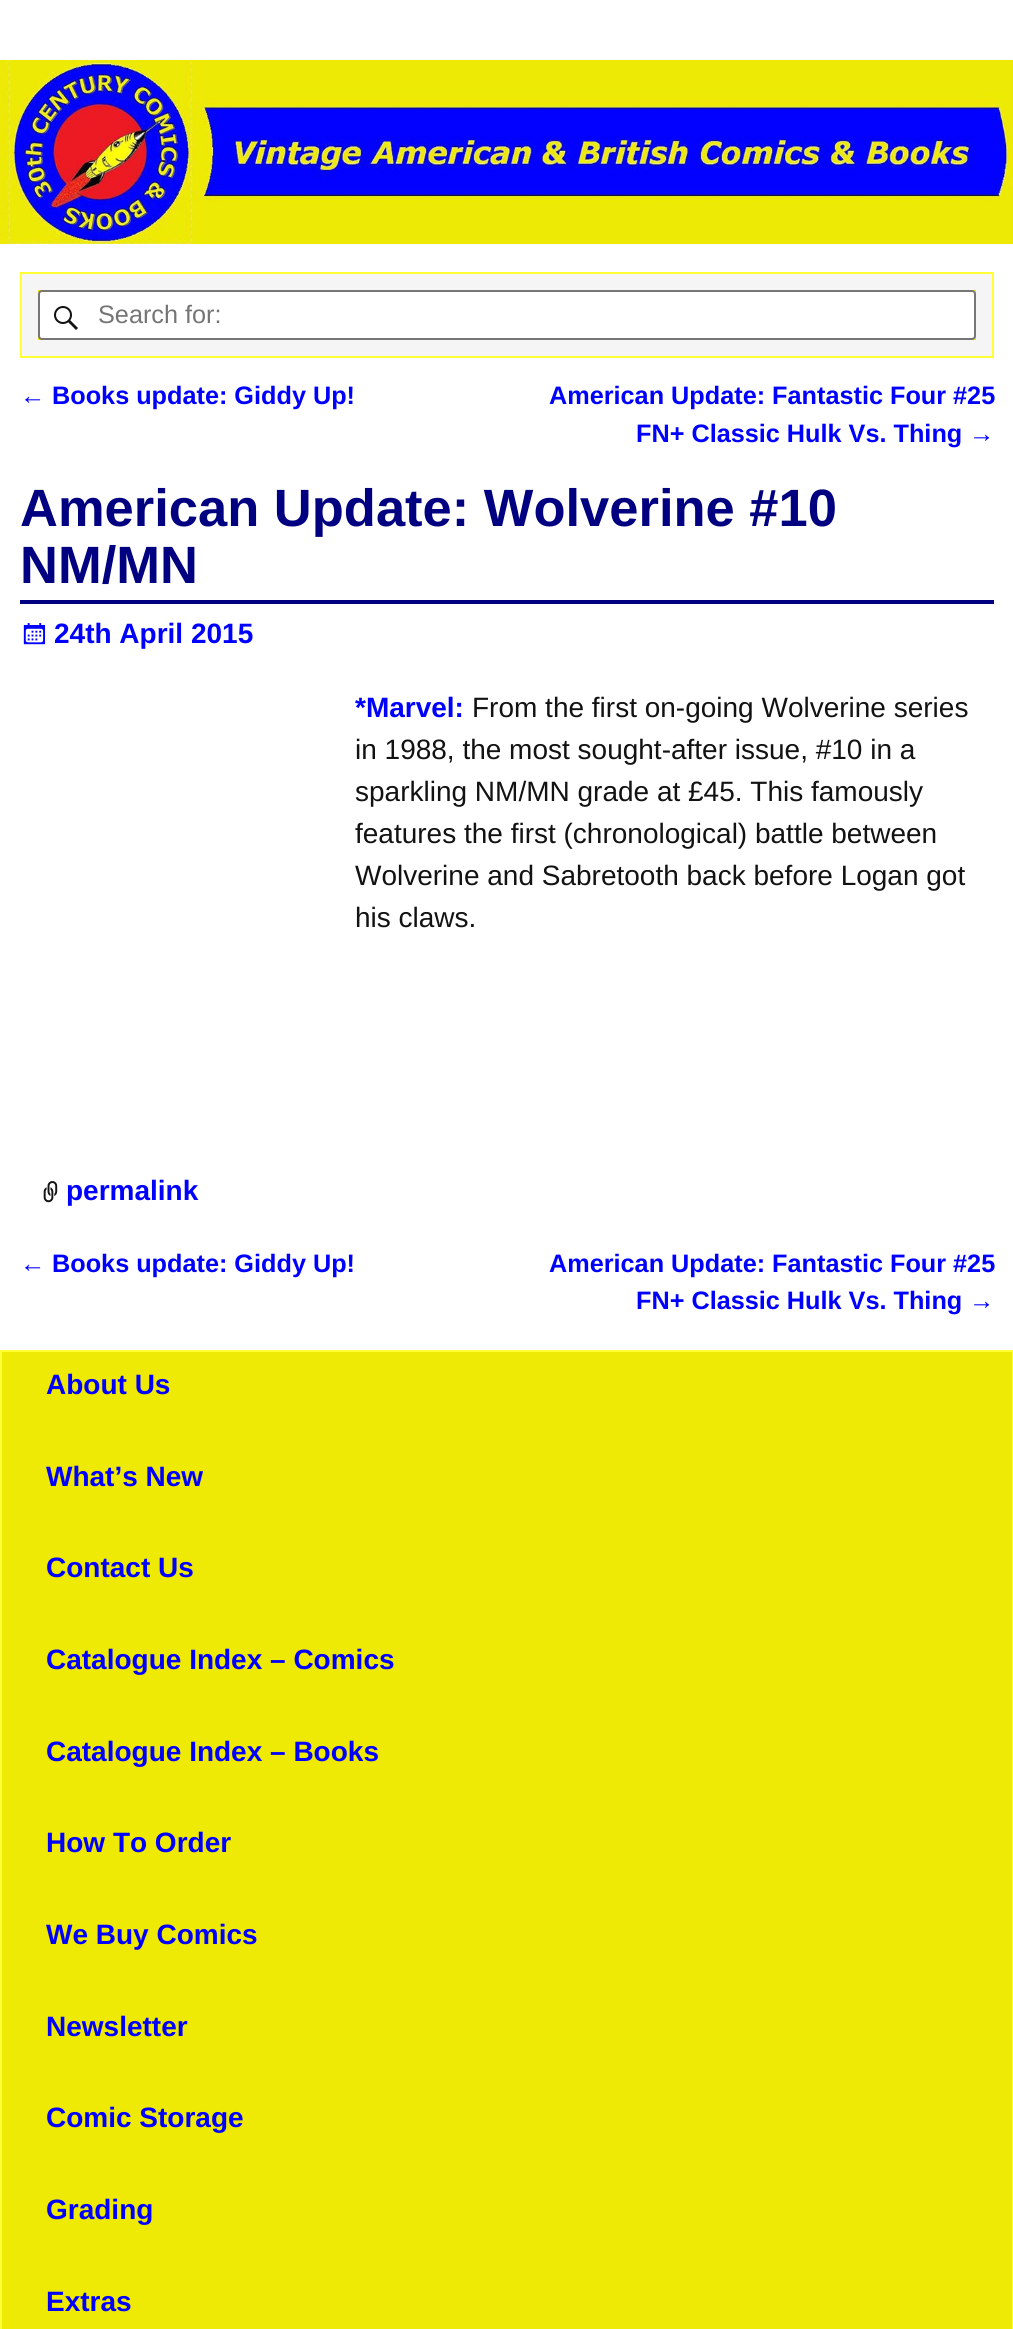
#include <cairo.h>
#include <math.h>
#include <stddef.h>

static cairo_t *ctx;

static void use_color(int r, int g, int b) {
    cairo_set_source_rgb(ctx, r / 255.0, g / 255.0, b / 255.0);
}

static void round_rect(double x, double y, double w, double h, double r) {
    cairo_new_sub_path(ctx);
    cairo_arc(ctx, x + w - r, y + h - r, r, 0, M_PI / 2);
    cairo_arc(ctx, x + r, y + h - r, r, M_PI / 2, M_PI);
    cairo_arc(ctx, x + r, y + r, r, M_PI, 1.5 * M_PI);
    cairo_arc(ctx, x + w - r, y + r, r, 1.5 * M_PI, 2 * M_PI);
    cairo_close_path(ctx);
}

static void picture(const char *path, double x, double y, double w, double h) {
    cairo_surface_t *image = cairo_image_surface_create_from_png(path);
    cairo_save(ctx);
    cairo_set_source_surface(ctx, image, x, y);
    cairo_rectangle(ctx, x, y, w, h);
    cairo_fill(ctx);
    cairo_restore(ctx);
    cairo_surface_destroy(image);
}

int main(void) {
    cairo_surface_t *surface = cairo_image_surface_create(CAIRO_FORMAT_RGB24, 1013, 2329);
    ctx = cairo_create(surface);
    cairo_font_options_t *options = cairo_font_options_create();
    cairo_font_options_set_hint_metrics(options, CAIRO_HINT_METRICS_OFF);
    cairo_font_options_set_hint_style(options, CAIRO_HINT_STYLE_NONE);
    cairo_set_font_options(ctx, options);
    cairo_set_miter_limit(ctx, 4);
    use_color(255, 255, 255);
    cairo_paint(ctx);
    picture("img1.png", 0, 60, 1013, 184);
    use_color(245, 245, 245);
    cairo_rectangle(ctx, 21, 273, 972, 84);
    cairo_fill_preserve(ctx);
    use_color(255, 255, 51);
    cairo_stroke(ctx);
    use_color(238, 233, 5);
    cairo_rectangle(ctx, 38, 290, 938, 50);
    cairo_fill(ctx);
    use_color(255, 255, 255);
    round_rect(39, 291, 936, 48, 3);
    cairo_fill_preserve(ctx);
    use_color(118, 118, 118);
    cairo_stroke(ctx);
    picture("img2.png", 54, 306, 24, 24);
    cairo_select_font_face(ctx, "Liberation Sans", CAIRO_FONT_SLANT_NORMAL, CAIRO_FONT_WEIGHT_NORMAL);
    cairo_set_font_size(ctx, 25.25);
    use_color(117, 117, 117);
    cairo_move_to(ctx, 98, 323);
    cairo_show_text(ctx, "Search for:");
    use_color(0, 0, 255);
    cairo_move_to(ctx, 20, 404);
    cairo_show_text(ctx, "←");
    cairo_select_font_face(ctx, "Liberation Sans", CAIRO_FONT_SLANT_NORMAL, CAIRO_FONT_WEIGHT_BOLD);
    cairo_move_to(ctx, 52, 404);
    cairo_show_text(ctx, "Books update: Giddy Up!");
    cairo_move_to(ctx, 549, 404);
    cairo_show_text(ctx, "American Update: Fantastic Four #25");
    cairo_move_to(ctx, 636, 442);
    cairo_show_text(ctx, "FN+ Classic Hulk Vs. Thing");
    cairo_select_font_face(ctx, "Liberation Sans", CAIRO_FONT_SLANT_NORMAL, CAIRO_FONT_WEIGHT_NORMAL);
    cairo_move_to(ctx, 969, 442);
    cairo_show_text(ctx, "→");
    use_color(0, 0, 128);
    cairo_rectangle(ctx, 20, 600, 974, 4);
    cairo_fill(ctx);
    cairo_select_font_face(ctx, "Liberation Sans", CAIRO_FONT_SLANT_NORMAL, CAIRO_FONT_WEIGHT_BOLD);
    cairo_set_font_size(ctx, 52.5);
    cairo_move_to(ctx, 20, 526);
    cairo_show_text(ctx, "American Update: Wolverine #10");
    cairo_move_to(ctx, 20, 583);
    cairo_show_text(ctx, "NM/MN");
    picture("img3.png", 23, 623, 23, 22);
    cairo_set_font_size(ctx, 28);
    use_color(0, 0, 255);
    cairo_move_to(ctx, 54, 643);
    cairo_show_text(ctx, "24th April 2015");
    cairo_move_to(ctx, 355, 717);
    cairo_show_text(ctx, "*Marvel:");
    cairo_select_font_face(ctx, "Liberation Sans", CAIRO_FONT_SLANT_NORMAL, CAIRO_FONT_WEIGHT_NORMAL);
    use_color(18, 18, 18);
    cairo_move_to(ctx, 472, 717);
    cairo_show_text(ctx, "From the first on-going Wolverine series");
    cairo_move_to(ctx, 355, 759);
    cairo_show_text(ctx, "in 1988, the most sought-after issue, #10 in a");
    cairo_move_to(ctx, 355, 801);
    cairo_show_text(ctx, "sparkling NM/MN grade at £45. This famously");
    cairo_move_to(ctx, 355, 843);
    cairo_show_text(ctx, "features the first (chronological) battle between");
    cairo_move_to(ctx, 355, 885);
    cairo_show_text(ctx, "Wolverine and Sabretooth back before Logan got");
    cairo_move_to(ctx, 355, 927);
    cairo_show_text(ctx, "his claws.");
    picture("img4.png", 43, 1181, 15, 22);
    cairo_select_font_face(ctx, "Liberation Sans", CAIRO_FONT_SLANT_NORMAL, CAIRO_FONT_WEIGHT_BOLD);
    use_color(0, 0, 255);
    cairo_move_to(ctx, 66, 1200);
    cairo_show_text(ctx, "permalink");
    cairo_select_font_face(ctx, "Liberation Sans", CAIRO_FONT_SLANT_NORMAL, CAIRO_FONT_WEIGHT_NORMAL);
    cairo_set_font_size(ctx, 25.25);
    cairo_move_to(ctx, 20, 1272);
    cairo_show_text(ctx, "←");
    cairo_select_font_face(ctx, "Liberation Sans", CAIRO_FONT_SLANT_NORMAL, CAIRO_FONT_WEIGHT_BOLD);
    cairo_move_to(ctx, 52, 1272);
    cairo_show_text(ctx, "Books update: Giddy Up!");
    cairo_move_to(ctx, 549, 1272);
    cairo_show_text(ctx, "American Update: Fantastic Four #25");
    cairo_move_to(ctx, 636, 1309);
    cairo_show_text(ctx, "FN+ Classic Hulk Vs. Thing");
    cairo_select_font_face(ctx, "Liberation Sans", CAIRO_FONT_SLANT_NORMAL, CAIRO_FONT_WEIGHT_NORMAL);
    cairo_move_to(ctx, 969, 1309);
    cairo_show_text(ctx, "→");
    use_color(238, 233, 5);
    cairo_rectangle(ctx, 1, 1351, 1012, 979);
    cairo_fill_preserve(ctx);
    use_color(255, 255, 51);
    cairo_stroke(ctx);
    cairo_select_font_face(ctx, "Liberation Sans", CAIRO_FONT_SLANT_NORMAL, CAIRO_FONT_WEIGHT_BOLD);
    cairo_set_font_size(ctx, 28);
    use_color(0, 0, 255);
    cairo_move_to(ctx, 46, 1394);
    cairo_show_text(ctx, "About Us");
    cairo_move_to(ctx, 46, 1486);
    cairo_show_text(ctx, "What’s New");
    cairo_move_to(ctx, 46, 1577);
    cairo_show_text(ctx, "Contact Us");
    cairo_move_to(ctx, 46, 1669);
    cairo_show_text(ctx, "Catalogue Index – Comics");
    cairo_move_to(ctx, 46, 1761);
    cairo_show_text(ctx, "Catalogue Index – Books");
    cairo_move_to(ctx, 46, 1852);
    cairo_show_text(ctx, "How To Order");
    cairo_move_to(ctx, 46, 1944);
    cairo_show_text(ctx, "We Buy Comics");
    cairo_move_to(ctx, 46, 2036);
    cairo_show_text(ctx, "Newsletter");
    cairo_move_to(ctx, 46, 2127);
    cairo_show_text(ctx, "Comic Storage");
    cairo_move_to(ctx, 46, 2219);
    cairo_show_text(ctx, "Grading");
    cairo_move_to(ctx, 46, 2311);
    cairo_show_text(ctx, "Extras");
    cairo_surface_write_to_png(surface, "result.png");
    cairo_font_options_destroy(options);
    cairo_destroy(ctx);
    cairo_surface_destroy(surface);
    return 0;
}
